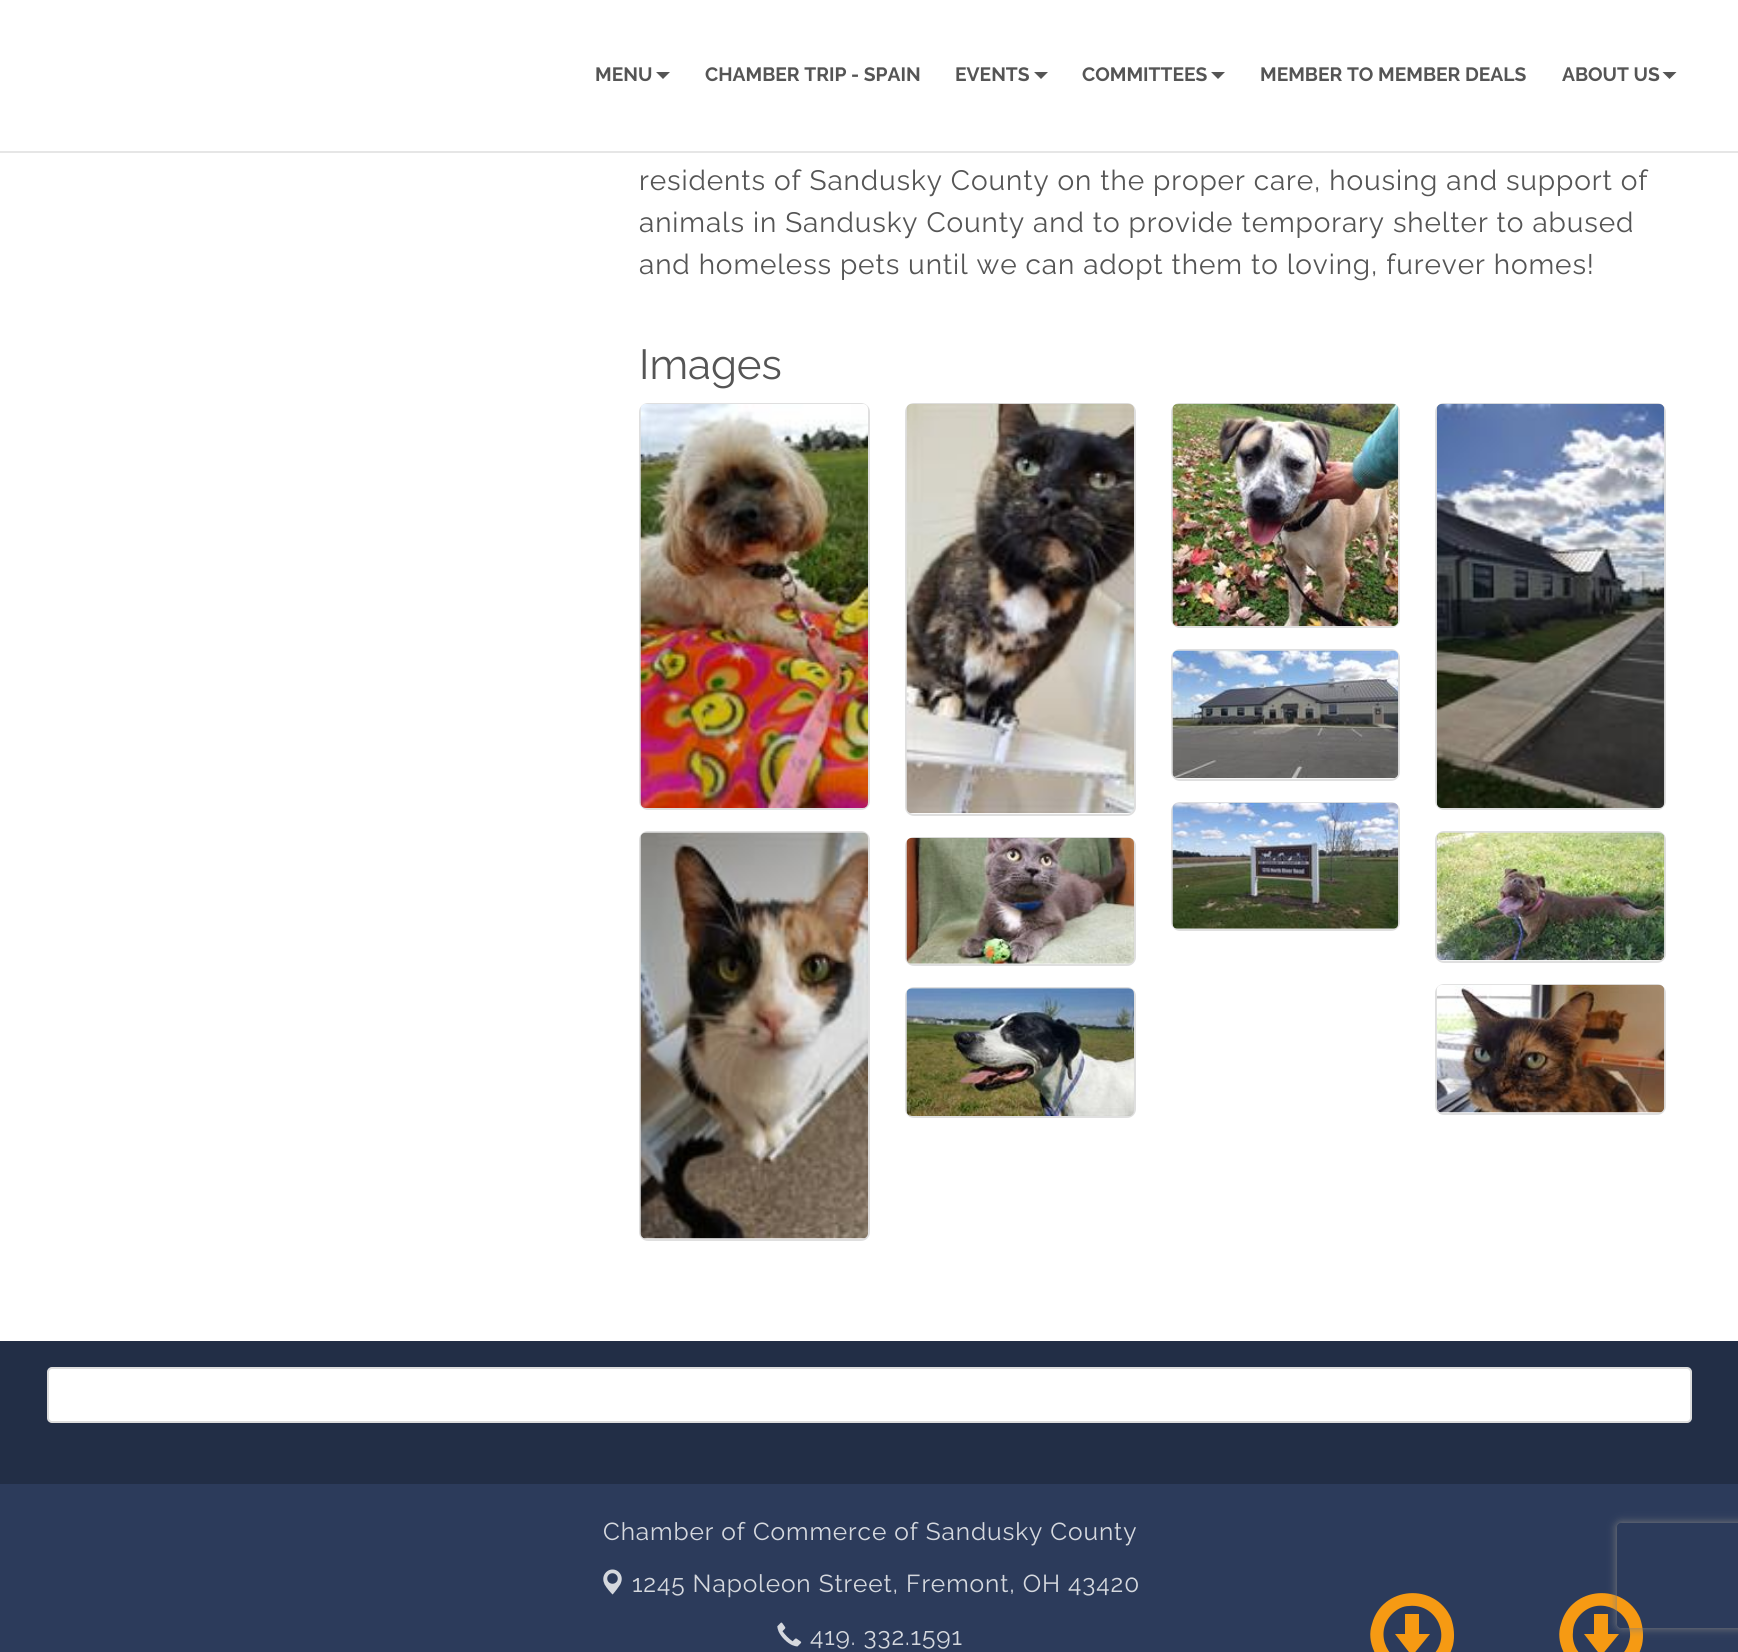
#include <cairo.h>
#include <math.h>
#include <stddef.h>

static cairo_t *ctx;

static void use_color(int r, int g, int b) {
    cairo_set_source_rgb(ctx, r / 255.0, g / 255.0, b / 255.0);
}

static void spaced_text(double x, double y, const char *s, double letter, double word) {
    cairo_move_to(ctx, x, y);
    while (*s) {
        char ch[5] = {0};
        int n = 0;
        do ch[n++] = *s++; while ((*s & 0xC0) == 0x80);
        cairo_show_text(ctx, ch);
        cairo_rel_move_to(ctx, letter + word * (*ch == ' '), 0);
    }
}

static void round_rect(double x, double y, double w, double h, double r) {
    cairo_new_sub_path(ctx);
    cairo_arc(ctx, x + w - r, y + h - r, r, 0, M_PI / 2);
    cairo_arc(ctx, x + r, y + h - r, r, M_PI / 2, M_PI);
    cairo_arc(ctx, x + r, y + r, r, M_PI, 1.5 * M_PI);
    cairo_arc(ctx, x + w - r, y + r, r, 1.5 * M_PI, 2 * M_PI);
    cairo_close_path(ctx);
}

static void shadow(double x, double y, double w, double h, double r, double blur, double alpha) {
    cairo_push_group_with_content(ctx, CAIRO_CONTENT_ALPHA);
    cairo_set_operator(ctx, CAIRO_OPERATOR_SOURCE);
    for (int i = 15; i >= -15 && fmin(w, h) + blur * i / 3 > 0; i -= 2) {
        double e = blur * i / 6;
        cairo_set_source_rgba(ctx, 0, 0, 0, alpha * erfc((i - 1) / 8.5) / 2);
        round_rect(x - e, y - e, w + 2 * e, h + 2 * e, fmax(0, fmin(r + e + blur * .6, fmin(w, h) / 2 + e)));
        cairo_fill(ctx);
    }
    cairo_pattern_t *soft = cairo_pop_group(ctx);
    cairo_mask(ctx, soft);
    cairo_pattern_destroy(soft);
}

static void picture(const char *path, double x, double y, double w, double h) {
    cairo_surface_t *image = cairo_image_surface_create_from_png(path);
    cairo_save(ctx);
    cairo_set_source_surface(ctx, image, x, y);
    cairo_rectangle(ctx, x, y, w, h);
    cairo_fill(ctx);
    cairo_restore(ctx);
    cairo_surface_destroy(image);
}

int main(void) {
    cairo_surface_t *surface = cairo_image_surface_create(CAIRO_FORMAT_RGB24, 1738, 1652);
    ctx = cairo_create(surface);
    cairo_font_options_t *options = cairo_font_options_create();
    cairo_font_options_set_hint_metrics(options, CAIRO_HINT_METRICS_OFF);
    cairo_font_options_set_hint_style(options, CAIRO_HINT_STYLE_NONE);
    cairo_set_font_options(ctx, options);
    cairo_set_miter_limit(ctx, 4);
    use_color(255, 255, 255);
    cairo_paint(ctx);
    use_color(230, 230, 230);
    cairo_rectangle(ctx, 0, 151, 1738, 2);
    cairo_fill(ctx);
    cairo_select_font_face(ctx, "Raleway", CAIRO_FONT_SLANT_NORMAL, CAIRO_FONT_WEIGHT_BOLD);
    cairo_set_font_size(ctx, 19.25);
    use_color(85, 85, 85);
    cairo_move_to(ctx, 595, 81);
    cairo_show_text(ctx, "MENU");
    cairo_new_path(ctx);
    cairo_move_to(ctx, 656, 72);
    cairo_line_to(ctx, 670, 72);
    cairo_line_to(ctx, 663, 79);
    cairo_close_path(ctx);
    cairo_fill(ctx);
    cairo_move_to(ctx, 705, 81);
    cairo_show_text(ctx, "CHAMBER TRIP - SPAIN");
    cairo_move_to(ctx, 955, 81);
    cairo_show_text(ctx, "EVENTS");
    cairo_new_path(ctx);
    cairo_move_to(ctx, 1034, 72);
    cairo_line_to(ctx, 1048, 72);
    cairo_line_to(ctx, 1041, 79);
    cairo_close_path(ctx);
    cairo_fill(ctx);
    cairo_move_to(ctx, 1082, 81);
    cairo_show_text(ctx, "COMMITTEES");
    cairo_new_path(ctx);
    cairo_move_to(ctx, 1211, 72);
    cairo_line_to(ctx, 1225, 72);
    cairo_line_to(ctx, 1218, 79);
    cairo_close_path(ctx);
    cairo_fill(ctx);
    cairo_move_to(ctx, 1260, 81);
    cairo_show_text(ctx, "MEMBER TO MEMBER DEALS");
    cairo_move_to(ctx, 1562, 81);
    cairo_show_text(ctx, "ABOUT US");
    cairo_new_path(ctx);
    cairo_move_to(ctx, 1662.5, 72);
    cairo_line_to(ctx, 1676.5, 72);
    cairo_line_to(ctx, 1669.5, 79);
    cairo_close_path(ctx);
    cairo_fill(ctx);
    cairo_select_font_face(ctx, "Raleway", CAIRO_FONT_SLANT_NORMAL, CAIRO_FONT_WEIGHT_NORMAL);
    cairo_set_font_size(ctx, 28);
    spaced_text(639, 190, "residents of Sandusky County on the proper care, housing and support of", 0.88, 0);
    spaced_text(639, 232, "animals in Sandusky County and to provide temporary shelter to abused", 0.88, 0);
    spaced_text(639, 274, "and homeless pets until we can adopt them to loving, furever homes!", 0.88, 0);
    cairo_set_font_size(ctx, 42);
    cairo_move_to(ctx, 639, 379);
    cairo_show_text(ctx, "Images");
    round_rect(640, 404, 229, 405, 8);
    use_color(223, 223, 223);
    cairo_stroke(ctx);
    picture("img1.png", 640, 404, 228, 404);
    round_rect(906, 404, 229, 411, 8);
    cairo_stroke(ctx);
    picture("img2.png", 906, 403, 228, 411);
    round_rect(1172, 404, 227, 223, 8);
    cairo_stroke(ctx);
    picture("img3.png", 1172, 403, 227, 223);
    round_rect(1436, 404, 229, 405, 8);
    cairo_stroke(ctx);
    picture("img4.png", 1436, 403, 229, 405);
    round_rect(1172, 650, 227, 130, 8);
    cairo_stroke(ctx);
    picture("img5.png", 1172, 650, 227, 129);
    round_rect(640, 832, 229, 408, 8);
    cairo_stroke(ctx);
    picture("img6.png", 640, 832, 228, 407);
    round_rect(906, 838, 229, 127, 8);
    cairo_stroke(ctx);
    picture("img7.png", 906, 837, 228, 127);
    round_rect(1172, 803, 227, 127, 8);
    cairo_stroke(ctx);
    picture("img8.png", 1172, 802, 227, 127);
    round_rect(1436, 832, 229, 130, 8);
    cairo_stroke(ctx);
    picture("img9.png", 1436, 832, 229, 129);
    round_rect(906, 988, 229, 129, 8);
    cairo_stroke(ctx);
    picture("img10.png", 906, 988, 228, 128);
    round_rect(1436, 985, 229, 129, 8);
    cairo_stroke(ctx);
    picture("img11.png", 1436, 984, 229, 129);
    use_color(34, 46, 70);
    cairo_rectangle(ctx, 0, 1341, 1738, 143);
    cairo_fill(ctx);
    use_color(255, 255, 255);
    round_rect(48, 1368, 1643, 54, 4);
    cairo_fill_preserve(ctx);
    use_color(221, 221, 221);
    cairo_stroke(ctx);
    use_color(44, 59, 91);
    cairo_rectangle(ctx, 0, 1484, 1738, 168);
    cairo_fill(ctx);
    cairo_set_font_size(ctx, 24.5);
    use_color(213, 216, 222);
    spaced_text(603, 1540, "Chamber of Commerce of Sandusky County", 0.88, 0);
    picture("img12.png", 603, 1569, 19, 26);
    spaced_text(632, 1592, "1245 Napoleon Street, Fremont, OH 43420", 0.88, 0);
    picture("img13.png", 777, 1622, 25, 25);
    spaced_text(810, 1645, "419. 332.1591", 0.88, 0);
    use_color(246, 154, 19);
    cairo_new_path(ctx);
    cairo_move_to(ctx, 1374, 1651);
    cairo_curve_to(ctx, 1370, 1642, 1369, 1633, 1372, 1624);
    cairo_curve_to(ctx, 1382, 1586, 1435, 1582, 1451, 1618);
    cairo_curve_to(ctx, 1454, 1627, 1455, 1636, 1453, 1645);
    cairo_curve_to(ctx, 1443, 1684, 1389, 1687, 1374, 1651);
    cairo_close_path(ctx);
    cairo_move_to(ctx, 1392, 1614);
    cairo_curve_to(ctx, 1373, 1633, 1388, 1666, 1415, 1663);
    cairo_curve_to(ctx, 1422, 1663, 1428, 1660, 1433, 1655);
    cairo_curve_to(ctx, 1452, 1636, 1436, 1603, 1409, 1606);
    cairo_curve_to(ctx, 1403, 1606, 1397, 1609, 1392, 1614);
    cairo_close_path(ctx);
    cairo_move_to(ctx, 1395, 1634);
    cairo_line_to(ctx, 1405, 1634);
    cairo_line_to(ctx, 1405, 1614);
    cairo_line_to(ctx, 1419, 1614);
    cairo_line_to(ctx, 1419, 1634);
    cairo_line_to(ctx, 1430, 1634);
    cairo_line_to(ctx, 1412, 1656);
    cairo_close_path(ctx);
    cairo_fill(ctx);
    cairo_new_path(ctx);
    cairo_move_to(ctx, 1563, 1651);
    cairo_curve_to(ctx, 1559, 1642, 1558, 1633, 1561, 1624);
    cairo_curve_to(ctx, 1571, 1586, 1624, 1582, 1640, 1618);
    cairo_curve_to(ctx, 1643, 1627, 1644, 1636, 1642, 1645);
    cairo_curve_to(ctx, 1632, 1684, 1578, 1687, 1563, 1651);
    cairo_close_path(ctx);
    cairo_move_to(ctx, 1581, 1614);
    cairo_curve_to(ctx, 1576, 1619, 1573, 1625, 1573, 1632);
    cairo_curve_to(ctx, 1570, 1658, 1602, 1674, 1622, 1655);
    cairo_curve_to(ctx, 1626, 1650, 1629, 1644, 1630, 1637);
    cairo_curve_to(ctx, 1632, 1611, 1600, 1595, 1581, 1614);
    cairo_close_path(ctx);
    cairo_move_to(ctx, 1584, 1634);
    cairo_line_to(ctx, 1594, 1634);
    cairo_line_to(ctx, 1594, 1614);
    cairo_line_to(ctx, 1608, 1614);
    cairo_line_to(ctx, 1608, 1634);
    cairo_line_to(ctx, 1619, 1634);
    cairo_line_to(ctx, 1601, 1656);
    cairo_close_path(ctx);
    cairo_fill(ctx);
    cairo_save(ctx);
    cairo_set_fill_rule(ctx, CAIRO_FILL_RULE_EVEN_ODD);
    cairo_new_path(ctx);
    cairo_move_to(ctx, 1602, 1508);
    cairo_line_to(ctx, 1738, 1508);
    cairo_line_to(ctx, 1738, 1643);
    cairo_line_to(ctx, 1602, 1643);
    cairo_close_path(ctx);
    cairo_move_to(ctx, 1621, 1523);
    cairo_line_to(ctx, 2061, 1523);
    cairo_curve_to(ctx, 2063, 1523, 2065, 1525, 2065, 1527);
    cairo_line_to(ctx, 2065, 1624);
    cairo_curve_to(ctx, 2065, 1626, 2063, 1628, 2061, 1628);
    cairo_line_to(ctx, 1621, 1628);
    cairo_curve_to(ctx, 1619, 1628, 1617, 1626, 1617, 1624);
    cairo_line_to(ctx, 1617, 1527);
    cairo_curve_to(ctx, 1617, 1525, 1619, 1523, 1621, 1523);
    cairo_close_path(ctx);
    cairo_clip(ctx);
    use_color(128, 128, 128);
    shadow(1617, 1523, 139, 105, 4, 4.5, 1);
    cairo_restore(ctx);
    cairo_surface_write_to_png(surface, "result.png");
    cairo_font_options_destroy(options);
    cairo_destroy(ctx);
    cairo_surface_destroy(surface);
    return 0;
}
